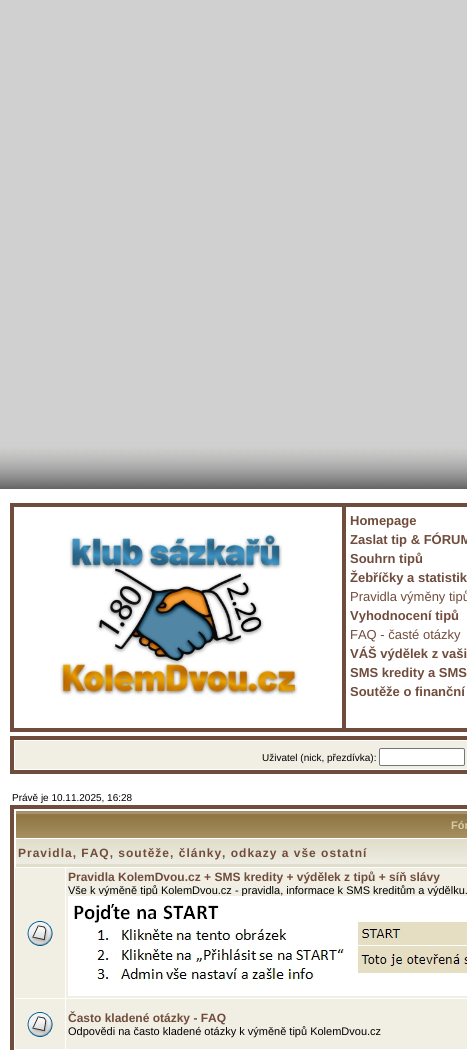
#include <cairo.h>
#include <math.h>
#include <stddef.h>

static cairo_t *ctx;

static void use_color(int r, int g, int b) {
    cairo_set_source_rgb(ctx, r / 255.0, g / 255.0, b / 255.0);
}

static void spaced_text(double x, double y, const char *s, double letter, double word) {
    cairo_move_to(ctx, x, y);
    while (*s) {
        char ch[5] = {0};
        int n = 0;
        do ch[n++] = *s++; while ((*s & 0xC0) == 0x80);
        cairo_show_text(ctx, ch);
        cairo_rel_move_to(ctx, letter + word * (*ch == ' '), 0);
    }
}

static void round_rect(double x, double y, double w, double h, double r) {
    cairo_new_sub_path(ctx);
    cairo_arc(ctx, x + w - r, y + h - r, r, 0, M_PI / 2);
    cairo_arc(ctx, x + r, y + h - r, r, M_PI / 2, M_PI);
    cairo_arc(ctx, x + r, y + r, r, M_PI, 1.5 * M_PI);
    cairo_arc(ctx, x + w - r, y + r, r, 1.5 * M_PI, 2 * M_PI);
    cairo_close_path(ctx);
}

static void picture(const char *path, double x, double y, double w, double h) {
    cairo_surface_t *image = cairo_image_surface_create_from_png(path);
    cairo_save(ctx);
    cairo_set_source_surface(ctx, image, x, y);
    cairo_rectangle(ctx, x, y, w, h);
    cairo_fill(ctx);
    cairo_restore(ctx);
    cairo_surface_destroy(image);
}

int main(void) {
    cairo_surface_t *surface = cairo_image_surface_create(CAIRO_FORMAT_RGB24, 467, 1050);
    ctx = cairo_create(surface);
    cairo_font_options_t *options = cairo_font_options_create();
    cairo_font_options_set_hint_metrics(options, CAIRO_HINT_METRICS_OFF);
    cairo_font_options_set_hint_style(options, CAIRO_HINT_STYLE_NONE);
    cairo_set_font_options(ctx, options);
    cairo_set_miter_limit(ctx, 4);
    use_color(255, 255, 255);
    cairo_paint(ctx);
    use_color(208, 208, 208);
    cairo_rectangle(ctx, 0, 0, 467, 442);
    cairo_fill(ctx);
    picture("img1.png", 0, 442, 467, 47);
    use_color(112, 76, 60);
    cairo_rectangle(ctx, 10, 503, 457, 229);
    cairo_fill(ctx);
    use_color(255, 255, 255);
    cairo_rectangle(ctx, 14, 507, 328, 221);
    cairo_fill(ctx);
    picture("img2.png", 60, 534, 238, 162);
    cairo_rectangle(ctx, 346, 507, 121, 221);
    cairo_fill(ctx);
    cairo_select_font_face(ctx, "Liberation Sans", CAIRO_FONT_SLANT_NORMAL, CAIRO_FONT_WEIGHT_BOLD);
    cairo_set_font_size(ctx, 13);
    use_color(112, 76, 60);
    cairo_move_to(ctx, 350, 525);
    cairo_show_text(ctx, "Homepage");
    cairo_move_to(ctx, 350, 544);
    cairo_show_text(ctx, "Zaslat tip & FÓRUM");
    cairo_move_to(ctx, 350, 563);
    cairo_show_text(ctx, "Souhrn tipů");
    cairo_move_to(ctx, 350, 582);
    cairo_show_text(ctx, "Žebříčky a statistik");
    cairo_select_font_face(ctx, "Liberation Sans", CAIRO_FONT_SLANT_NORMAL, CAIRO_FONT_WEIGHT_NORMAL);
    cairo_move_to(ctx, 350, 601);
    cairo_show_text(ctx, "Pravidla výměny tipů");
    cairo_select_font_face(ctx, "Liberation Sans", CAIRO_FONT_SLANT_NORMAL, CAIRO_FONT_WEIGHT_BOLD);
    cairo_move_to(ctx, 350, 620);
    cairo_show_text(ctx, "Vyhodnocení tipů");
    cairo_select_font_face(ctx, "Liberation Sans", CAIRO_FONT_SLANT_NORMAL, CAIRO_FONT_WEIGHT_NORMAL);
    cairo_move_to(ctx, 350, 639);
    cairo_show_text(ctx, "FAQ - časté otázky");
    cairo_select_font_face(ctx, "Liberation Sans", CAIRO_FONT_SLANT_NORMAL, CAIRO_FONT_WEIGHT_BOLD);
    cairo_move_to(ctx, 350, 658);
    cairo_show_text(ctx, "VÁŠ výdělek z vaši");
    cairo_move_to(ctx, 350, 677);
    cairo_show_text(ctx, "SMS kredity a SMS");
    cairo_move_to(ctx, 350, 696);
    cairo_show_text(ctx, "Soutěže o finanční");
    cairo_rectangle(ctx, 12, 738, 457, 34);
    cairo_set_line_width(ctx, 4);
    cairo_stroke(ctx);
    use_color(241, 238, 228);
    cairo_rectangle(ctx, 15, 741, 452, 28);
    cairo_fill(ctx);
    cairo_select_font_face(ctx, "Liberation Sans", CAIRO_FONT_SLANT_NORMAL, CAIRO_FONT_WEIGHT_NORMAL);
    cairo_set_font_size(ctx, 10);
    use_color(0, 0, 0);
    cairo_move_to(ctx, 262, 761);
    cairo_show_text(ctx, "Uživatel (nick, přezdívka):");
    use_color(255, 255, 255);
    round_rect(379.5, 748.5, 85, 17, 1.5);
    cairo_fill_preserve(ctx);
    use_color(118, 118, 118);
    cairo_set_line_width(ctx, 1);
    cairo_stroke(ctx);
    use_color(0, 0, 0);
    cairo_move_to(ctx, 12, 801);
    cairo_show_text(ctx, "Právě je 10.11.2025, 16:28");
    cairo_rectangle(ctx, 12, 807, 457, 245);
    use_color(112, 76, 60);
    cairo_set_line_width(ctx, 4);
    cairo_stroke(ctx);
    picture("img3.png", 16, 811, 451, 27);
    cairo_select_font_face(ctx, "Liberation Sans", CAIRO_FONT_SLANT_NORMAL, CAIRO_FONT_WEIGHT_BOLD);
    cairo_set_font_size(ctx, 11);
    use_color(213, 204, 172);
    cairo_move_to(ctx, 451, 829);
    cairo_show_text(ctx, "Fór");
    picture("img4.png", 16, 839, 451, 28);
    cairo_set_font_size(ctx, 12);
    use_color(112, 76, 60);
    spaced_text(18, 857, "Pravidla, FAQ, soutěže, články, odkazy a vše ostatní", 1, 0);
    use_color(241, 238, 228);
    cairo_rectangle(ctx, 15, 868, 50, 130);
    cairo_fill(ctx);
    picture("img5.png", 27, 921, 26, 25);
    cairo_rectangle(ctx, 66, 868, 401, 130);
    cairo_fill(ctx);
    use_color(112, 76, 60);
    cairo_move_to(ctx, 68, 881);
    cairo_show_text(ctx, "Pravidla KolemDvou.cz + SMS kredity + výdělek z tipů + síň slávy");
    cairo_select_font_face(ctx, "Liberation Sans", CAIRO_FONT_SLANT_NORMAL, CAIRO_FONT_WEIGHT_NORMAL);
    cairo_set_font_size(ctx, 11);
    use_color(0, 0, 0);
    cairo_move_to(ctx, 68, 894);
    cairo_show_text(ctx, "Vše k výměně tipů KolemDvou.cz - pravidla, informace k SMS kreditům a výdělku.");
    picture("img6.png", 68, 896, 399, 100);
    use_color(241, 238, 228);
    cairo_rectangle(ctx, 15, 999, 50, 50);
    cairo_fill(ctx);
    picture("img5.png", 27, 1012, 26, 25);
    cairo_rectangle(ctx, 66, 999, 401, 50);
    cairo_fill(ctx);
    cairo_select_font_face(ctx, "Liberation Sans", CAIRO_FONT_SLANT_NORMAL, CAIRO_FONT_WEIGHT_BOLD);
    cairo_set_font_size(ctx, 12);
    use_color(112, 76, 60);
    cairo_move_to(ctx, 68, 1022);
    cairo_show_text(ctx, "Často kladené otázky - FAQ");
    cairo_select_font_face(ctx, "Liberation Sans", CAIRO_FONT_SLANT_NORMAL, CAIRO_FONT_WEIGHT_NORMAL);
    cairo_set_font_size(ctx, 11);
    use_color(0, 0, 0);
    cairo_move_to(ctx, 68, 1035);
    cairo_show_text(ctx, "Odpovědi na často kladené otázky k výměně tipů KolemDvou.cz");
    cairo_surface_write_to_png(surface, "result.png");
    cairo_font_options_destroy(options);
    cairo_destroy(ctx);
    cairo_surface_destroy(surface);
    return 0;
}
